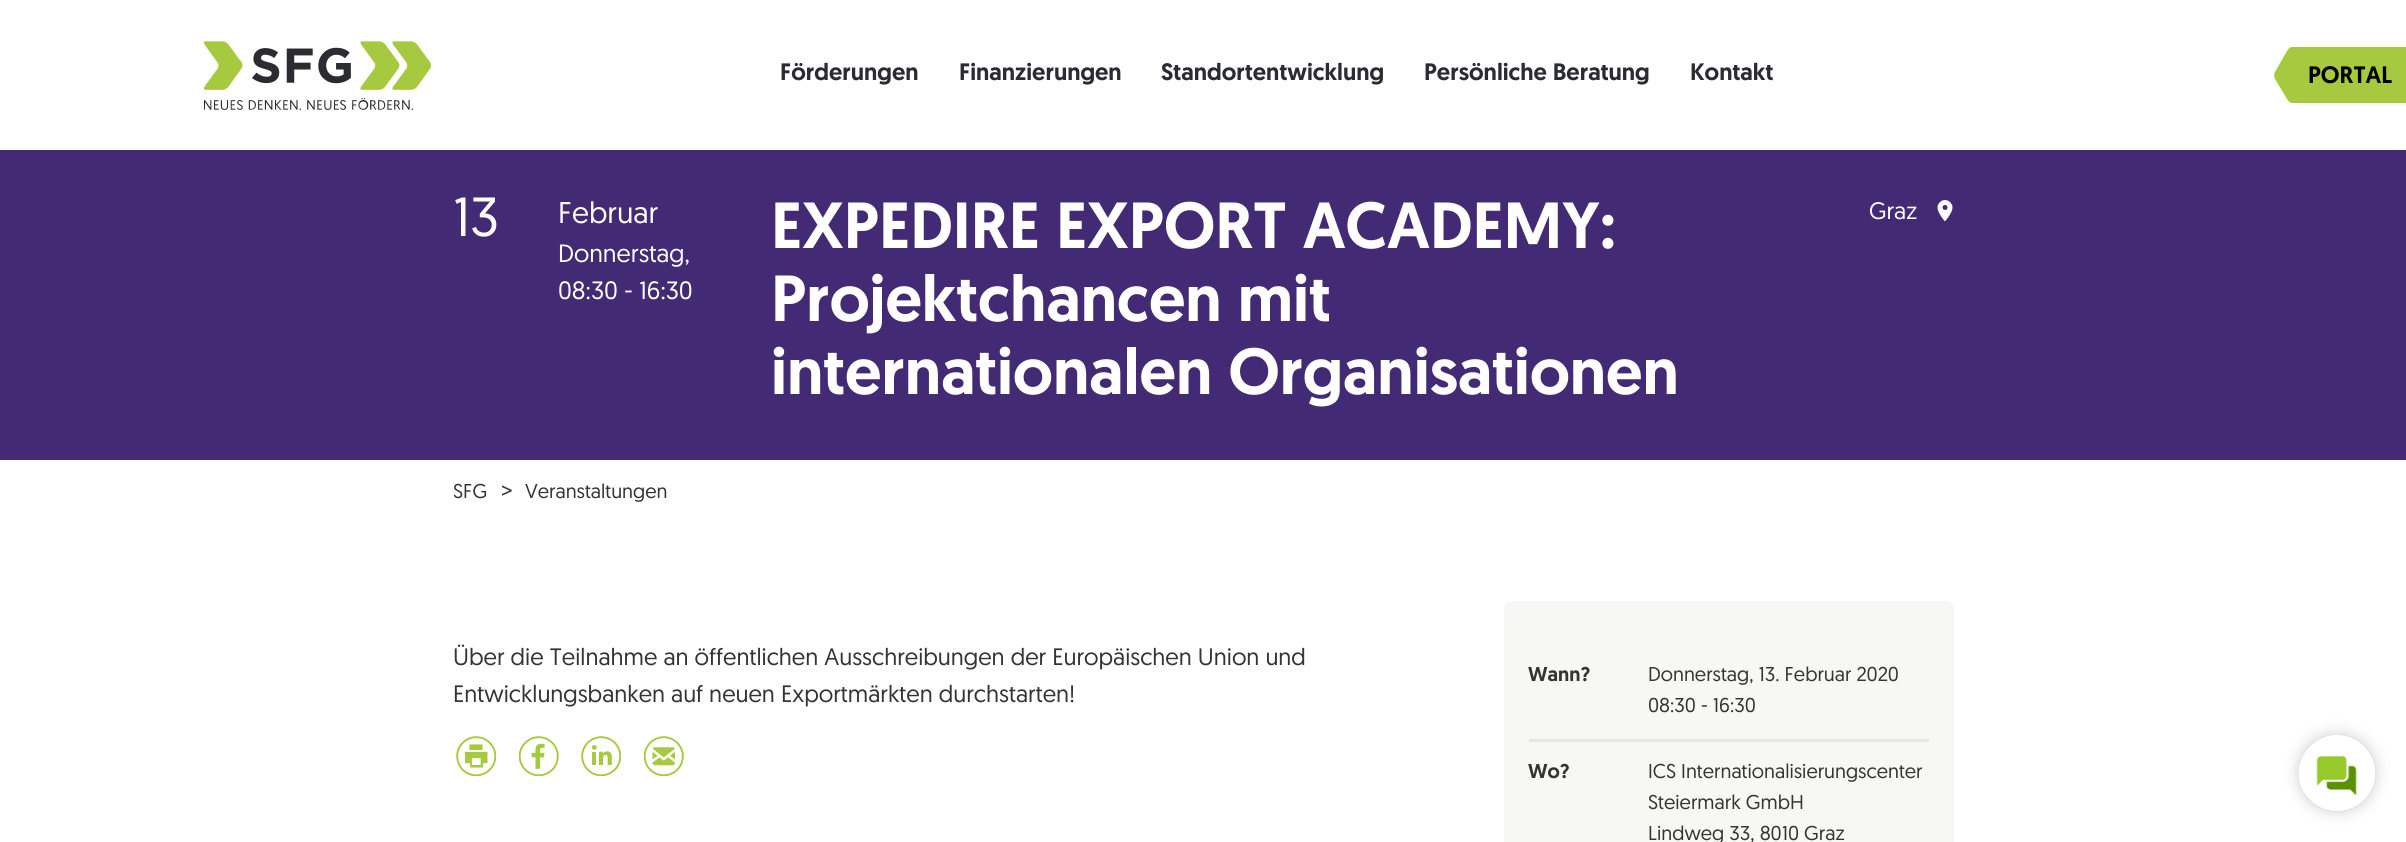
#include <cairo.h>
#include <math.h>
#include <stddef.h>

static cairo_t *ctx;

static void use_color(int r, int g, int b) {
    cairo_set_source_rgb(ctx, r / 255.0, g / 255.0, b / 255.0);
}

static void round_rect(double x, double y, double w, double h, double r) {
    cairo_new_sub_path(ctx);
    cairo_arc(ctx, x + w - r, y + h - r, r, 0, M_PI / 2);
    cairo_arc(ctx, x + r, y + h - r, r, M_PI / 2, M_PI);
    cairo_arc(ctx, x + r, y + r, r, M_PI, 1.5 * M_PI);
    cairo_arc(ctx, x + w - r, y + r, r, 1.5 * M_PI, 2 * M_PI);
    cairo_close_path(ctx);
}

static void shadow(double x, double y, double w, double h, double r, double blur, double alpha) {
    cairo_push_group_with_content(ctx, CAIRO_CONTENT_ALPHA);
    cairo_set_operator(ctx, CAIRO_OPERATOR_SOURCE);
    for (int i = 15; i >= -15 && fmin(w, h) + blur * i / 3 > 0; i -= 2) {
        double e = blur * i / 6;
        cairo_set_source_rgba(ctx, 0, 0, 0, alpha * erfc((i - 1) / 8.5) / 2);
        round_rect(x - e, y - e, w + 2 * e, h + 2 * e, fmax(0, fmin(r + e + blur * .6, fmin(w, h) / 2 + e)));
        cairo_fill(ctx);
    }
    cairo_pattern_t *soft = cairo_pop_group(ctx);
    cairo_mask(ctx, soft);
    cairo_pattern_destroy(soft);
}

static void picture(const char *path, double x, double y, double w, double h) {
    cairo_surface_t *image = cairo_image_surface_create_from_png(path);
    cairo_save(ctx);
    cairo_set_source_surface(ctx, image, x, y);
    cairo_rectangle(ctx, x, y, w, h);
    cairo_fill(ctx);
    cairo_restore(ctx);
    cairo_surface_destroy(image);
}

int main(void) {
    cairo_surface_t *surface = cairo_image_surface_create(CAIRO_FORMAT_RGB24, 2406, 842);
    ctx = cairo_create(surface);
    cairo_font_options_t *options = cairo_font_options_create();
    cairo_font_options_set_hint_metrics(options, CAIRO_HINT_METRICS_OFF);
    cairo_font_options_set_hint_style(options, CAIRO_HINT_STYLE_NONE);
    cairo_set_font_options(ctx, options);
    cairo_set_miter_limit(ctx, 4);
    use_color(255, 255, 255);
    cairo_paint(ctx);
    picture("img1.png", 204, 41, 227, 69);
    cairo_select_font_face(ctx, "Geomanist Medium", CAIRO_FONT_SLANT_NORMAL, CAIRO_FONT_WEIGHT_NORMAL);
    cairo_set_font_size(ctx, 23.75);
    use_color(43, 43, 50);
    cairo_move_to(ctx, 780, 80);
    cairo_show_text(ctx, "Förderungen");
    cairo_move_to(ctx, 959, 80);
    cairo_show_text(ctx, "Finanzierungen");
    cairo_move_to(ctx, 1161, 80);
    cairo_show_text(ctx, "Standortentwicklung");
    cairo_move_to(ctx, 1424, 80);
    cairo_show_text(ctx, "Persönliche Beratung");
    cairo_move_to(ctx, 1690, 80);
    cairo_show_text(ctx, "Kontakt");
    use_color(166, 201, 63);
    cairo_new_path(ctx);
    cairo_move_to(ctx, 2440, 99);
    cairo_curve_to(ctx, 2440, 99, 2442, 103, 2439, 103);
    cairo_line_to(ctx, 2292, 103);
    cairo_curve_to(ctx, 2292, 103, 2289, 103, 2287, 99);
    cairo_line_to(ctx, 2275, 79);
    cairo_curve_to(ctx, 2275, 79, 2273, 75, 2275, 72);
    cairo_line_to(ctx, 2287, 51);
    cairo_curve_to(ctx, 2287, 51, 2289, 47, 2292, 47);
    cairo_line_to(ctx, 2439, 47);
    cairo_curve_to(ctx, 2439, 47, 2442, 47, 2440, 51);
    cairo_line_to(ctx, 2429, 71);
    cairo_curve_to(ctx, 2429, 71, 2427, 75, 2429, 79);
    cairo_close_path(ctx);
    cairo_fill(ctx);
    use_color(0, 0, 0);
    cairo_move_to(ctx, 2308, 83);
    cairo_show_text(ctx, "PORTAL");
    use_color(67, 42, 116);
    cairo_rectangle(ctx, 0, 150, 2406, 310);
    cairo_fill(ctx);
    cairo_select_font_face(ctx, "Geomanist", CAIRO_FONT_SLANT_NORMAL, CAIRO_FONT_WEIGHT_NORMAL);
    cairo_set_font_size(ctx, 55);
    use_color(255, 255, 255);
    cairo_move_to(ctx, 453, 236);
    cairo_show_text(ctx, "13");
    cairo_set_font_size(ctx, 30);
    cairo_move_to(ctx, 558, 223);
    cairo_show_text(ctx, "Februar");
    cairo_set_font_size(ctx, 25);
    cairo_move_to(ctx, 558, 262);
    cairo_show_text(ctx, "Donnerstag,");
    cairo_move_to(ctx, 558, 299);
    cairo_show_text(ctx, "08:30 - 16:30");
    cairo_select_font_face(ctx, "Geomanist Medium", CAIRO_FONT_SLANT_NORMAL, CAIRO_FONT_WEIGHT_NORMAL);
    cairo_set_font_size(ctx, 65);
    cairo_move_to(ctx, 771, 248);
    cairo_show_text(ctx, "EXPEDIRE EXPORT ACADEMY:");
    cairo_move_to(ctx, 771, 321);
    cairo_show_text(ctx, "Projektchancen mit");
    cairo_move_to(ctx, 771, 394);
    cairo_show_text(ctx, "internationalen Organisationen");
    cairo_select_font_face(ctx, "Geomanist", CAIRO_FONT_SLANT_NORMAL, CAIRO_FONT_WEIGHT_NORMAL);
    cairo_set_font_size(ctx, 23.75);
    cairo_move_to(ctx, 1869, 219);
    cairo_show_text(ctx, "Graz");
    picture("img2.png", 1937, 200, 16, 22);
    cairo_set_font_size(ctx, 20);
    use_color(52, 52, 52);
    cairo_move_to(ctx, 453, 498);
    cairo_show_text(ctx, "SFG");
    cairo_set_font_size(ctx, 23.75);
    cairo_move_to(ctx, 501, 498);
    cairo_show_text(ctx, ">");
    cairo_set_font_size(ctx, 20);
    cairo_move_to(ctx, 525, 498);
    cairo_show_text(ctx, "Veranstaltungen");
    cairo_set_font_size(ctx, 23.75);
    cairo_move_to(ctx, 453, 665);
    cairo_show_text(ctx, "Über die Teilnahme an öffentlichen Ausschreibungen der Europäischen Union und");
    cairo_move_to(ctx, 453, 702);
    cairo_show_text(ctx, "Entwicklungsbanken auf neuen Exportmärkten durchstarten!");
    picture("img3.png", 456, 736, 40, 40);
    picture("img4.png", 519, 736, 40, 40);
    picture("img5.png", 581, 736, 40, 40);
    picture("img6.png", 644, 736, 40, 40);
    use_color(247, 247, 245);
    round_rect(1504, 601, 450, 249, 8);
    cairo_fill(ctx);
    cairo_select_font_face(ctx, "Geomanist Medium", CAIRO_FONT_SLANT_NORMAL, CAIRO_FONT_WEIGHT_NORMAL);
    cairo_set_font_size(ctx, 20);
    use_color(52, 52, 52);
    cairo_move_to(ctx, 1528, 681);
    cairo_show_text(ctx, "Wann?");
    cairo_select_font_face(ctx, "Geomanist", CAIRO_FONT_SLANT_NORMAL, CAIRO_FONT_WEIGHT_NORMAL);
    cairo_move_to(ctx, 1648, 681);
    cairo_show_text(ctx, "Donnerstag, 13. Februar 2020");
    cairo_move_to(ctx, 1648, 712);
    cairo_show_text(ctx, "08:30 - 16:30");
    use_color(230, 230, 227);
    cairo_rectangle(ctx, 1529, 739, 400, 3);
    cairo_fill(ctx);
    cairo_select_font_face(ctx, "Geomanist Medium", CAIRO_FONT_SLANT_NORMAL, CAIRO_FONT_WEIGHT_NORMAL);
    use_color(52, 52, 52);
    cairo_move_to(ctx, 1528, 778);
    cairo_show_text(ctx, "Wo?");
    cairo_select_font_face(ctx, "Geomanist", CAIRO_FONT_SLANT_NORMAL, CAIRO_FONT_WEIGHT_NORMAL);
    cairo_move_to(ctx, 1648, 778);
    cairo_show_text(ctx, "ICS Internationalisierungscenter");
    cairo_move_to(ctx, 1648, 809);
    cairo_show_text(ctx, "Steiermark GmbH");
    cairo_move_to(ctx, 1648, 840);
    cairo_show_text(ctx, "Lindweg 33, 8010 Graz");
    use_color(153, 153, 153);
    shadow(2305, 741, 64, 64, 32, 9.5, 1);
    use_color(255, 255, 255);
    cairo_arc(ctx, 2337, 773, 38, 0, 2 * M_PI);
    cairo_fill(ctx);
    picture("img7.png", 2298, 756, 77, 40);
    cairo_surface_write_to_png(surface, "result.png");
    cairo_font_options_destroy(options);
    cairo_destroy(ctx);
    cairo_surface_destroy(surface);
    return 0;
}
